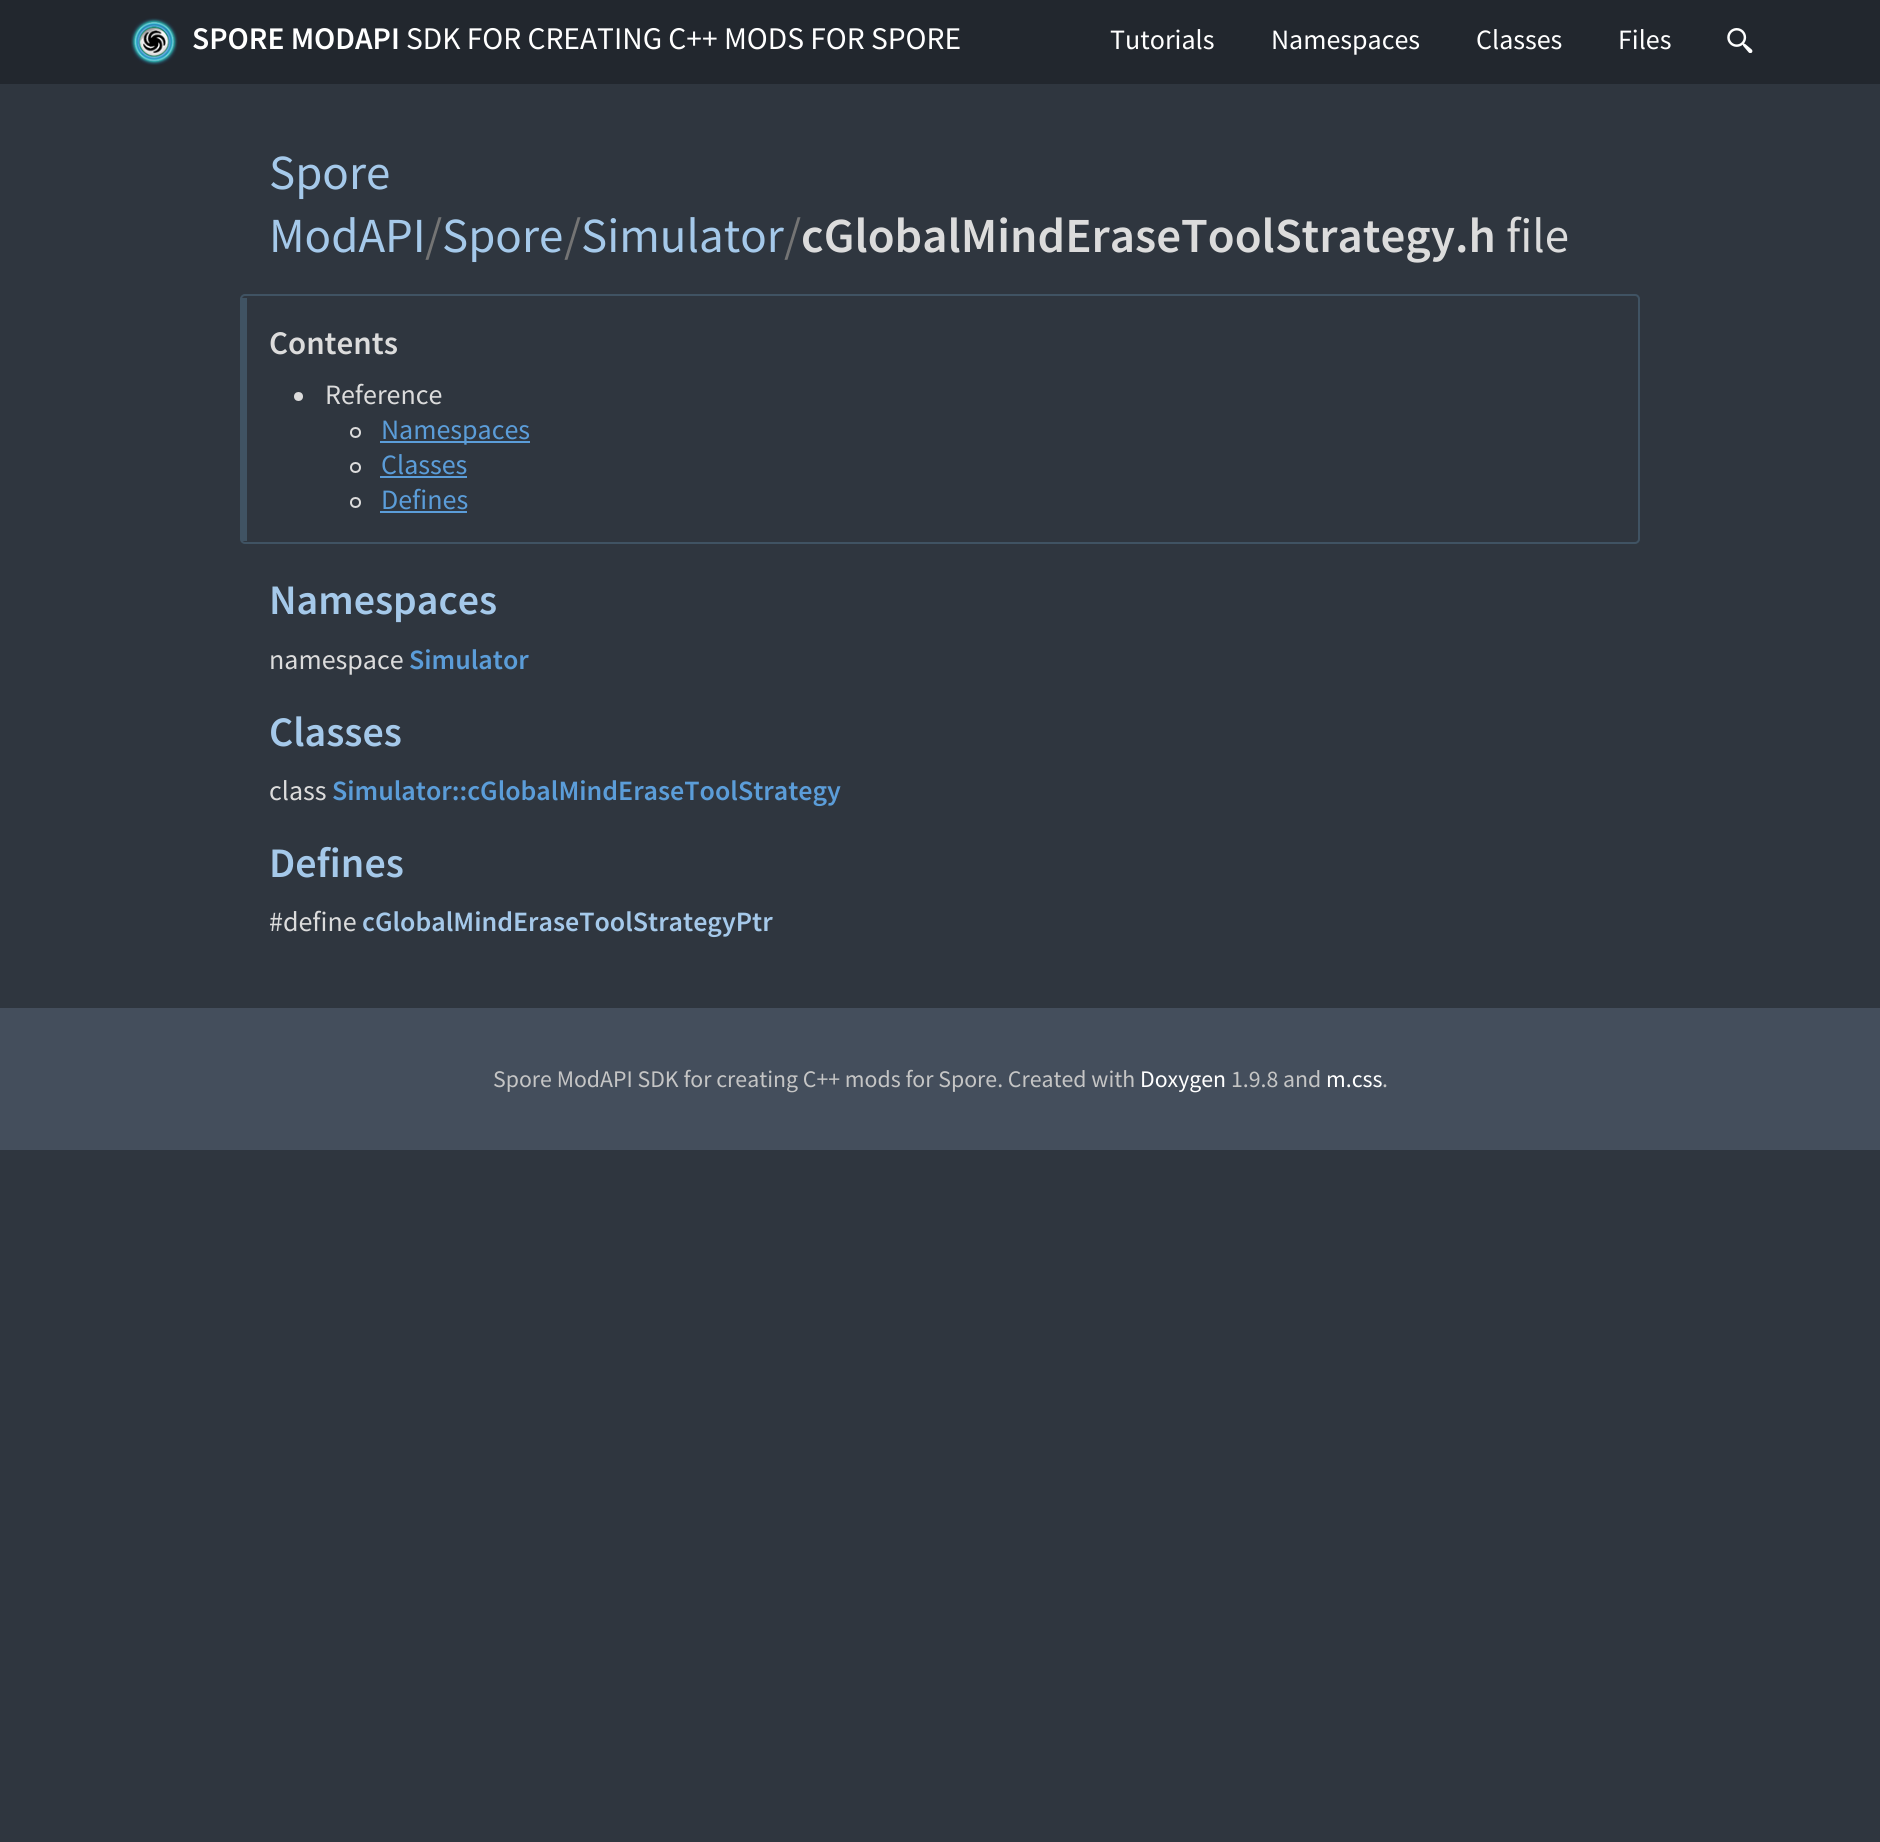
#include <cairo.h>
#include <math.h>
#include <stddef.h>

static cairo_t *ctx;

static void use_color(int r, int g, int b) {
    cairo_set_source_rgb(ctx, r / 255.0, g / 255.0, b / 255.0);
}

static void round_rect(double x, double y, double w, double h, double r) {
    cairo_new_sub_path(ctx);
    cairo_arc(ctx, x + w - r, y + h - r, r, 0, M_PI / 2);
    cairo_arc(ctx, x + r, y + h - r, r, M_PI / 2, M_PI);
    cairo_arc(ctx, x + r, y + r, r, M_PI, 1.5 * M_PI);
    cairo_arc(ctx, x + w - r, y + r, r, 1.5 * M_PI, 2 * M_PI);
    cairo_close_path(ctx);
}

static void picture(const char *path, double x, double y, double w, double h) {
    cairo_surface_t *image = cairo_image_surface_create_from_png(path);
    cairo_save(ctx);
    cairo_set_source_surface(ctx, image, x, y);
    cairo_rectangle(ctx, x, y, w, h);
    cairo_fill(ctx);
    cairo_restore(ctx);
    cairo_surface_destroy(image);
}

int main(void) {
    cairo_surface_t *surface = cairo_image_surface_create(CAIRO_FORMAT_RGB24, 1880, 1842);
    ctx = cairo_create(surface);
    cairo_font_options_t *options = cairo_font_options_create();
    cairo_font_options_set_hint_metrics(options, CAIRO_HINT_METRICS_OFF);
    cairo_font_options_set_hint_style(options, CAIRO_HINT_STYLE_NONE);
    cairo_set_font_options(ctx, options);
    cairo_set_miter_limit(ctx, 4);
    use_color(47, 54, 63);
    cairo_paint(ctx);
    use_color(34, 39, 46);
    cairo_rectangle(ctx, 0, 0, 1880, 84);
    cairo_fill(ctx);
    picture("img1.png", 131, 18, 47, 47);
    cairo_select_font_face(ctx, "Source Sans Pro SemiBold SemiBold", CAIRO_FONT_SLANT_NORMAL, CAIRO_FONT_WEIGHT_NORMAL);
    cairo_set_font_size(ctx, 31.5);
    use_color(255, 255, 255);
    cairo_move_to(ctx, 192, 49);
    cairo_show_text(ctx, "SPORE MODAPI");
    cairo_select_font_face(ctx, "Source Sans Pro", CAIRO_FONT_SLANT_NORMAL, CAIRO_FONT_WEIGHT_NORMAL);
    cairo_move_to(ctx, 406, 49);
    cairo_show_text(ctx, "SDK FOR CREATING C++ MODS FOR SPORE");
    cairo_set_font_size(ctx, 28);
    cairo_move_to(ctx, 1110, 49);
    cairo_show_text(ctx, "Tutorials");
    cairo_move_to(ctx, 1271, 49);
    cairo_show_text(ctx, "Namespaces");
    cairo_move_to(ctx, 1476, 49);
    cairo_show_text(ctx, "Classes");
    cairo_move_to(ctx, 1618, 49);
    cairo_show_text(ctx, "Files");
    picture("img2.png", 1727, 28, 26, 25);
    cairo_set_font_size(ctx, 49);
    use_color(165, 201, 234);
    cairo_move_to(ctx, 269, 189);
    cairo_show_text(ctx, "Spore");
    cairo_move_to(ctx, 269, 252);
    cairo_show_text(ctx, "ModAPI");
    use_color(116, 116, 116);
    cairo_move_to(ctx, 425, 252);
    cairo_show_text(ctx, "/");
    use_color(165, 201, 234);
    cairo_move_to(ctx, 442, 252);
    cairo_show_text(ctx, "Spore");
    use_color(116, 116, 116);
    cairo_move_to(ctx, 564, 252);
    cairo_show_text(ctx, "/");
    use_color(165, 201, 234);
    cairo_move_to(ctx, 581, 252);
    cairo_show_text(ctx, "Simulator");
    use_color(116, 116, 116);
    cairo_move_to(ctx, 784, 252);
    cairo_show_text(ctx, "/");
    cairo_select_font_face(ctx, "Source Sans Pro SemiBold SemiBold", CAIRO_FONT_SLANT_NORMAL, CAIRO_FONT_WEIGHT_NORMAL);
    use_color(220, 220, 220);
    cairo_move_to(ctx, 801, 252);
    cairo_show_text(ctx, "cGlobalMindEraseToolStrategy.h");
    cairo_select_font_face(ctx, "Source Sans Pro", CAIRO_FONT_SLANT_NORMAL, CAIRO_FONT_WEIGHT_NORMAL);
    cairo_move_to(ctx, 1506, 252);
    cairo_show_text(ctx, "file");
    round_rect(241, 295, 1398, 248, 4);
    use_color(64, 83, 99);
    cairo_stroke(ctx);
    cairo_rectangle(ctx, 242, 298, 5, 243);
    cairo_fill(ctx);
    cairo_select_font_face(ctx, "Source Sans Pro SemiBold SemiBold", CAIRO_FONT_SLANT_NORMAL, CAIRO_FONT_WEIGHT_NORMAL);
    cairo_set_font_size(ctx, 33);
    use_color(220, 220, 220);
    cairo_move_to(ctx, 269, 354);
    cairo_show_text(ctx, "Contents");
    cairo_new_path(ctx);
    cairo_arc(ctx, 298.5, 396.5, 4.5, 0, 2 * M_PI);
    cairo_fill(ctx);
    cairo_select_font_face(ctx, "Source Sans Pro", CAIRO_FONT_SLANT_NORMAL, CAIRO_FONT_WEIGHT_NORMAL);
    cairo_set_font_size(ctx, 28);
    cairo_move_to(ctx, 325, 404);
    cairo_show_text(ctx, "Reference");
    cairo_new_path(ctx);
    cairo_arc(ctx, 355.5, 432.5, 4.5, 0, 2 * M_PI);
    cairo_stroke(ctx);
    use_color(91, 157, 217);
    cairo_rectangle(ctx, 380, 441, 150, 2);
    cairo_fill(ctx);
    cairo_move_to(ctx, 381, 439);
    cairo_show_text(ctx, "Namespaces");
    cairo_new_path(ctx);
    cairo_arc(ctx, 355.5, 467.5, 4.5, 0, 2 * M_PI);
    use_color(220, 220, 220);
    cairo_stroke(ctx);
    use_color(91, 157, 217);
    cairo_move_to(ctx, 381, 474);
    cairo_show_text(ctx, "Classes");
    cairo_rectangle(ctx, 380, 476, 87, 2);
    cairo_fill(ctx);
    cairo_arc(ctx, 355.5, 502.5, 4.5, 0, 2 * M_PI);
    use_color(220, 220, 220);
    cairo_stroke(ctx);
    use_color(91, 157, 217);
    cairo_move_to(ctx, 381, 509);
    cairo_show_text(ctx, "Defines");
    cairo_rectangle(ctx, 380, 511, 87, 2);
    cairo_fill(ctx);
    cairo_select_font_face(ctx, "Source Sans Pro SemiBold SemiBold", CAIRO_FONT_SLANT_NORMAL, CAIRO_FONT_WEIGHT_NORMAL);
    cairo_set_font_size(ctx, 42);
    use_color(165, 201, 234);
    cairo_move_to(ctx, 269, 614);
    cairo_show_text(ctx, "Namespaces");
    cairo_select_font_face(ctx, "Source Sans Pro", CAIRO_FONT_SLANT_NORMAL, CAIRO_FONT_WEIGHT_NORMAL);
    cairo_set_font_size(ctx, 28);
    use_color(220, 220, 220);
    cairo_move_to(ctx, 269, 669);
    cairo_show_text(ctx, "namespace");
    cairo_select_font_face(ctx, "Source Sans Pro SemiBold SemiBold", CAIRO_FONT_SLANT_NORMAL, CAIRO_FONT_WEIGHT_NORMAL);
    use_color(91, 157, 217);
    cairo_move_to(ctx, 409, 669);
    cairo_show_text(ctx, "Simulator");
    cairo_set_font_size(ctx, 42);
    use_color(165, 201, 234);
    cairo_move_to(ctx, 269, 746);
    cairo_show_text(ctx, "Classes");
    cairo_select_font_face(ctx, "Source Sans Pro", CAIRO_FONT_SLANT_NORMAL, CAIRO_FONT_WEIGHT_NORMAL);
    cairo_set_font_size(ctx, 28);
    use_color(220, 220, 220);
    cairo_move_to(ctx, 269, 800);
    cairo_show_text(ctx, "class");
    cairo_select_font_face(ctx, "Source Sans Pro SemiBold SemiBold", CAIRO_FONT_SLANT_NORMAL, CAIRO_FONT_WEIGHT_NORMAL);
    use_color(91, 157, 217);
    cairo_move_to(ctx, 332, 800);
    cairo_show_text(ctx, "Simulator::cGlobalMindEraseToolStrategy");
    cairo_set_font_size(ctx, 42);
    use_color(165, 201, 234);
    cairo_move_to(ctx, 269, 877);
    cairo_show_text(ctx, "Defines");
    cairo_select_font_face(ctx, "Source Sans Pro", CAIRO_FONT_SLANT_NORMAL, CAIRO_FONT_WEIGHT_NORMAL);
    cairo_set_font_size(ctx, 28);
    use_color(220, 220, 220);
    cairo_move_to(ctx, 269, 931);
    cairo_show_text(ctx, "#define");
    cairo_select_font_face(ctx, "Source Sans Pro SemiBold SemiBold", CAIRO_FONT_SLANT_NORMAL, CAIRO_FONT_WEIGHT_NORMAL);
    use_color(165, 201, 234);
    cairo_move_to(ctx, 362, 931);
    cairo_show_text(ctx, "cGlobalMindEraseToolStrategyPtr");
    use_color(68, 78, 92);
    cairo_rectangle(ctx, 0, 1008, 1880, 142);
    cairo_fill(ctx);
    cairo_select_font_face(ctx, "Source Sans Pro", CAIRO_FONT_SLANT_NORMAL, CAIRO_FONT_WEIGHT_NORMAL);
    cairo_set_font_size(ctx, 23.8);
    use_color(197, 197, 197);
    cairo_move_to(ctx, 493, 1087);
    cairo_show_text(ctx, "Spore ModAPI SDK for creating C++ mods for Spore. Created with");
    use_color(255, 255, 255);
    cairo_move_to(ctx, 1140, 1087);
    cairo_show_text(ctx, "Doxygen");
    use_color(197, 197, 197);
    cairo_move_to(ctx, 1231, 1087);
    cairo_show_text(ctx, "1.9.8 and");
    use_color(255, 255, 255);
    cairo_move_to(ctx, 1326, 1087);
    cairo_show_text(ctx, "m.css");
    use_color(197, 197, 197);
    cairo_move_to(ctx, 1382, 1087);
    cairo_show_text(ctx, ".");
    cairo_surface_write_to_png(surface, "result.png");
    cairo_font_options_destroy(options);
    cairo_destroy(ctx);
    cairo_surface_destroy(surface);
    return 0;
}
